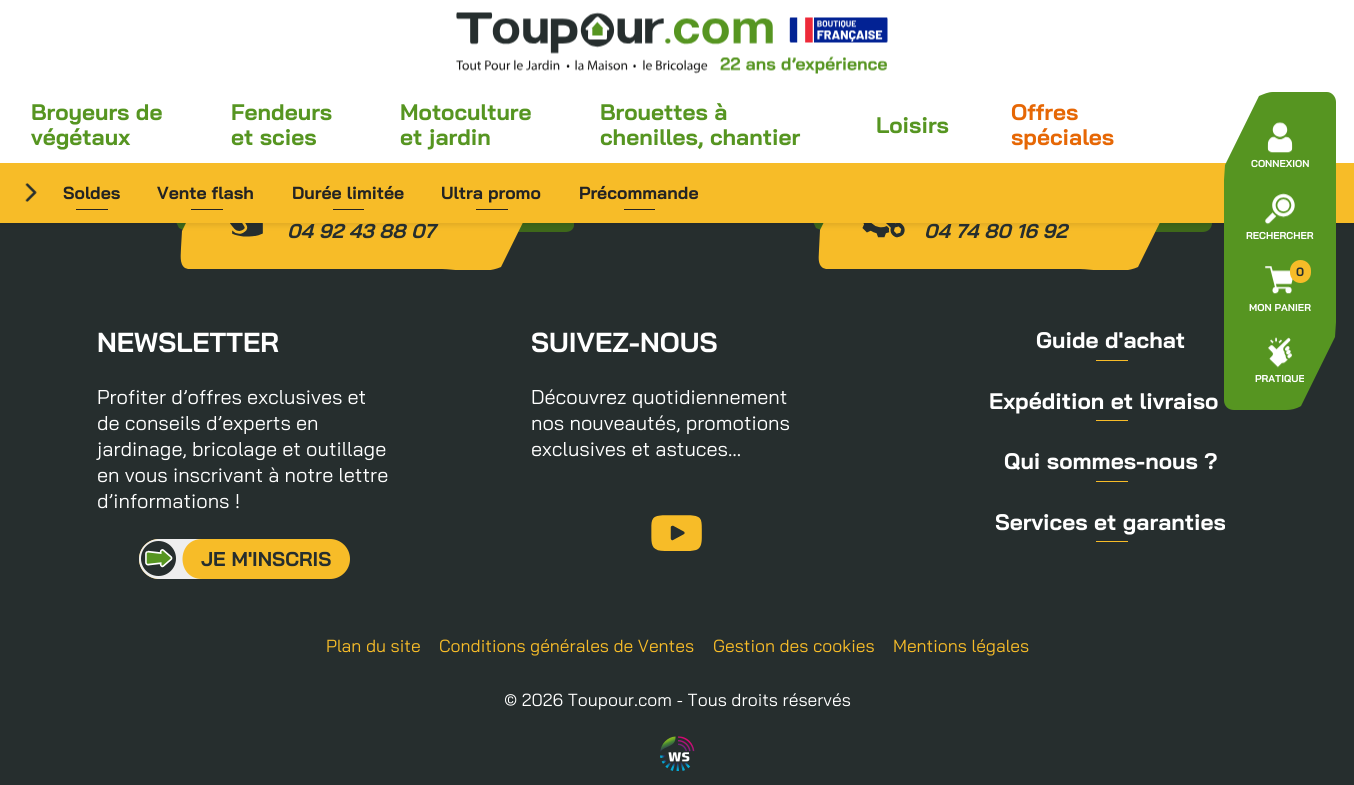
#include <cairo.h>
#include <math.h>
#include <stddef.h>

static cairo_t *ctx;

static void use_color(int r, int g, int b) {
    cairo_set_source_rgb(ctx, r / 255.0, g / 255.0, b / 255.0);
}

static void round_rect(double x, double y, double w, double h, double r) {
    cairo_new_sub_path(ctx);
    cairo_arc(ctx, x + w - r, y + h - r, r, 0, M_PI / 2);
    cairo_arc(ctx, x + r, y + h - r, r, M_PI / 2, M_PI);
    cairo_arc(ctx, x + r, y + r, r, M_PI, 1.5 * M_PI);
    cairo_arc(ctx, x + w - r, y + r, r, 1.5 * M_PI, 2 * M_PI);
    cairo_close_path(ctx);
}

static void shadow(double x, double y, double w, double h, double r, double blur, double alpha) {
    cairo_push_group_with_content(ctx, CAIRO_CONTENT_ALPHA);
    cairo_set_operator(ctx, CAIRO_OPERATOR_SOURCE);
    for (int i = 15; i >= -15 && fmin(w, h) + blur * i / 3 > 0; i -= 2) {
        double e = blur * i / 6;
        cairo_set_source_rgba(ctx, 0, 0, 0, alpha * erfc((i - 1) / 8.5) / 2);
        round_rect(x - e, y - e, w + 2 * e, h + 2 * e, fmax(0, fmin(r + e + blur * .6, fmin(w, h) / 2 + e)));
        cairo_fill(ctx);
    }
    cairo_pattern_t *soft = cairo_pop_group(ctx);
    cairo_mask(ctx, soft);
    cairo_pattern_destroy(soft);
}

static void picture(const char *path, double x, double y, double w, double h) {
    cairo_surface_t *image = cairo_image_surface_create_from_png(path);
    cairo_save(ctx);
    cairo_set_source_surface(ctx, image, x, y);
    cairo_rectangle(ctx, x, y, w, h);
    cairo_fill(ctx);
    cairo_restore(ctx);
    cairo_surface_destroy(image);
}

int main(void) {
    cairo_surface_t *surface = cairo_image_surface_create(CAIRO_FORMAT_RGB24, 1354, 785);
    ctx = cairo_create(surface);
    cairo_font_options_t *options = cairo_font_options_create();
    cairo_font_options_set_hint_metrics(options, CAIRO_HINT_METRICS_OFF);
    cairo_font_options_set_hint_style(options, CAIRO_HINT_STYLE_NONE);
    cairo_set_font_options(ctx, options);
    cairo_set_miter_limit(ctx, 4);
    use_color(38, 46, 46);
    cairo_paint(ctx);
    use_color(62, 104, 26);
    cairo_new_path(ctx);
    cairo_move_to(ctx, 145, 160);
    cairo_line_to(ctx, 144, 145);
    cairo_line_to(ctx, 144, 26);
    cairo_curve_to(ctx, 144, 22, 147, 17, 152, 16);
    cairo_line_to(ctx, 529, 16);
    cairo_curve_to(ctx, 532, 17, 535, 18, 538, 19);
    cairo_line_to(ctx, 574, 91);
    cairo_line_to(ctx, 574, 226);
    cairo_curve_to(ctx, 573, 230, 570, 232, 565, 232);
    cairo_line_to(ctx, 193, 232);
    cairo_curve_to(ctx, 188, 232, 183, 230, 179, 228);
    cairo_close_path(ctx);
    cairo_fill(ctx);
    cairo_save(ctx);
    cairo_rectangle(ctx, 59, 16, 1237, 254);
    cairo_clip(ctx);
    use_color(247, 188, 40);
    cairo_new_path(ctx);
    cairo_move_to(ctx, 216, 162);
    cairo_curve_to(ctx, 221, 160, 225, 158, 230, 158);
    cairo_line_to(ctx, 528, 158);
    cairo_curve_to(ctx, 532, 158, 535, 160, 537, 163);
    cairo_line_to(ctx, 537, 194);
    cairo_line_to(ctx, 501, 267);
    cairo_curve_to(ctx, 483, 275, 453, 269, 442, 269);
    cairo_line_to(ctx, 188, 269);
    cairo_line_to(ctx, 185, 268);
    cairo_curve_to(ctx, 179, 264, 181, 254, 181, 248);
    cairo_line_to(ctx, 182, 231);
    cairo_close_path(ctx);
    cairo_fill(ctx);
    cairo_restore(ctx);
    picture("img7.png", 230, 223, 33, 14);
    cairo_new_path(ctx);
    cairo_move_to(ctx, 782, 159);
    cairo_line_to(ctx, 781, 145);
    cairo_line_to(ctx, 781, 26);
    cairo_curve_to(ctx, 781, 22, 785, 17, 789, 16);
    cairo_line_to(ctx, 1166, 16);
    cairo_curve_to(ctx, 1170, 17, 1173, 18, 1176, 19);
    cairo_line_to(ctx, 1211, 90);
    cairo_line_to(ctx, 1212, 98);
    cairo_line_to(ctx, 1212, 224);
    cairo_curve_to(ctx, 1211, 229, 1208, 232, 1202, 232);
    cairo_line_to(ctx, 830, 232);
    cairo_curve_to(ctx, 825, 232, 821, 230, 816, 228);
    cairo_close_path(ctx);
    cairo_fill(ctx);
    cairo_save(ctx);
    cairo_rectangle(ctx, 59, 16, 1237, 254);
    cairo_clip(ctx);
    use_color(247, 188, 40);
    cairo_new_path(ctx);
    cairo_move_to(ctx, 854, 162);
    cairo_curve_to(ctx, 858, 160, 863, 158, 868, 158);
    cairo_line_to(ctx, 1165, 158);
    cairo_curve_to(ctx, 1170, 158, 1173, 160, 1174, 164);
    cairo_line_to(ctx, 1174, 194);
    cairo_line_to(ctx, 1138, 267);
    cairo_curve_to(ctx, 1121, 275, 1091, 269, 1080, 269);
    cairo_line_to(ctx, 826, 269);
    cairo_line_to(ctx, 823, 268);
    cairo_curve_to(ctx, 817, 264, 819, 256, 819, 250);
    cairo_line_to(ctx, 820, 230);
    cairo_close_path(ctx);
    cairo_fill(ctx);
    cairo_restore(ctx);
    picture("img8.png", 862, 223, 43, 15);
    use_color(0, 0, 0);
    shadow(0, 3, 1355, 222, 0, 3, 0.11);
    use_color(255, 255, 255);
    cairo_rectangle(ctx, 0, 0, 1354, 163);
    cairo_fill(ctx);
    picture("img1.png", 456, 12, 432, 62);
    cairo_select_font_face(ctx, "Bai Jamjuree", CAIRO_FONT_SLANT_NORMAL, CAIRO_FONT_WEIGHT_BOLD);
    cairo_set_font_size(ctx, 22.5);
    use_color(86, 149, 33);
    cairo_move_to(ctx, 31, 120);
    cairo_show_text(ctx, "Broyeurs de");
    cairo_move_to(ctx, 31, 145);
    cairo_show_text(ctx, "végétaux");
    cairo_move_to(ctx, 231, 120);
    cairo_show_text(ctx, "Fendeurs");
    cairo_move_to(ctx, 231, 145);
    cairo_show_text(ctx, "et scies");
    cairo_move_to(ctx, 400, 120);
    cairo_show_text(ctx, "Motoculture");
    cairo_move_to(ctx, 400, 145);
    cairo_show_text(ctx, "et jardin");
    cairo_move_to(ctx, 600, 120);
    cairo_show_text(ctx, "Brouettes à");
    cairo_move_to(ctx, 600, 145);
    cairo_show_text(ctx, "chenilles, chantier");
    cairo_move_to(ctx, 876, 133);
    cairo_show_text(ctx, "Loisirs");
    use_color(230, 103, 5);
    cairo_move_to(ctx, 1011, 120);
    cairo_show_text(ctx, "Offres");
    cairo_move_to(ctx, 1011, 145);
    cairo_show_text(ctx, "spéciales");
    use_color(247, 188, 40);
    cairo_rectangle(ctx, 0, 163, 1354, 60);
    cairo_fill(ctx);
    picture("img2.png", 25, 183, 12, 19);
    cairo_set_font_size(ctx, 17.5);
    use_color(35, 35, 35);
    cairo_move_to(ctx, 63, 199);
    cairo_show_text(ctx, "Soldes");
    cairo_rectangle(ctx, 76, 209, 32, 1);
    cairo_fill(ctx);
    cairo_move_to(ctx, 157, 199);
    cairo_show_text(ctx, "Vente flash");
    cairo_rectangle(ctx, 191, 209, 32, 1);
    cairo_fill(ctx);
    cairo_move_to(ctx, 292, 199);
    cairo_show_text(ctx, "Durée limitée");
    cairo_rectangle(ctx, 333, 209, 31, 1);
    cairo_fill(ctx);
    cairo_move_to(ctx, 441, 199);
    cairo_show_text(ctx, "Ultra promo");
    cairo_rectangle(ctx, 476, 209, 32, 1);
    cairo_fill(ctx);
    cairo_move_to(ctx, 579, 199);
    cairo_show_text(ctx, "Précommande");
    cairo_rectangle(ctx, 624, 209, 31, 1);
    cairo_fill(ctx);
    use_color(86, 149, 33);
    cairo_new_path(ctx);
    cairo_move_to(ctx, 1259, 96);
    cairo_curve_to(ctx, 1264, 94, 1268, 92, 1273, 92);
    cairo_line_to(ctx, 1327, 92);
    cairo_curve_to(ctx, 1332, 92, 1336, 97, 1336, 102);
    cairo_line_to(ctx, 1336, 322);
    cairo_line_to(ctx, 1335, 337);
    cairo_line_to(ctx, 1301, 406);
    cairo_curve_to(ctx, 1296, 409, 1291, 410, 1286, 410);
    cairo_line_to(ctx, 1234, 410);
    cairo_curve_to(ctx, 1228, 410, 1224, 406, 1224, 400);
    cairo_line_to(ctx, 1224, 180);
    cairo_line_to(ctx, 1225, 165);
    cairo_close_path(ctx);
    cairo_fill(ctx);
    picture("img3.png", 1267, 122, 26, 31);
    cairo_set_font_size(ctx, 10);
    use_color(255, 255, 255);
    cairo_move_to(ctx, 1251, 167);
    cairo_show_text(ctx, "CONNEXION");
    picture("img4.png", 1265, 193, 30, 32);
    cairo_move_to(ctx, 1246, 239);
    cairo_show_text(ctx, "RECHERCHER");
    picture("img5.png", 1265, 266, 28, 28);
    use_color(247, 188, 40);
    round_rect(1290, 260, 21, 23, 10.5);
    cairo_fill(ctx);
    cairo_set_font_size(ctx, 12);
    use_color(38, 46, 46);
    cairo_move_to(ctx, 1296, 276);
    cairo_show_text(ctx, "0");
    cairo_set_font_size(ctx, 10);
    use_color(255, 255, 255);
    cairo_move_to(ctx, 1249, 311);
    cairo_show_text(ctx, "MON PANIER");
    picture("img6.png", 1268, 337, 24, 31);
    cairo_move_to(ctx, 1255, 382);
    cairo_show_text(ctx, "PRATIQUE");
    cairo_select_font_face(ctx, "Bai Jamjuree", CAIRO_FONT_SLANT_ITALIC, CAIRO_FONT_WEIGHT_BOLD);
    cairo_set_font_size(ctx, 20);
    use_color(38, 46, 46);
    cairo_move_to(ctx, 287, 238);
    cairo_show_text(ctx, "04 92 43 88 07");
    cairo_move_to(ctx, 924, 238);
    cairo_show_text(ctx, "04 74 80 16 92");
    cairo_select_font_face(ctx, "Bai Jamjuree", CAIRO_FONT_SLANT_NORMAL, CAIRO_FONT_WEIGHT_BOLD);
    cairo_set_font_size(ctx, 27.5);
    use_color(255, 255, 255);
    cairo_move_to(ctx, 97, 352);
    cairo_show_text(ctx, "NEWSLETTER");
    cairo_select_font_face(ctx, "Bai Jamjuree", CAIRO_FONT_SLANT_NORMAL, CAIRO_FONT_WEIGHT_NORMAL);
    cairo_set_font_size(ctx, 20);
    cairo_move_to(ctx, 97, 404);
    cairo_show_text(ctx, "Profiter d’offres exclusives et");
    cairo_move_to(ctx, 97, 430);
    cairo_show_text(ctx, "de conseils d’experts en");
    cairo_move_to(ctx, 97, 456);
    cairo_show_text(ctx, "jardinage, bricolage et outillage");
    cairo_move_to(ctx, 97, 482);
    cairo_show_text(ctx, "en vous inscrivant à notre lettre");
    cairo_move_to(ctx, 97, 508);
    cairo_show_text(ctx, "d’informations !");
    use_color(247, 188, 40);
    round_rect(139, 539, 211, 40, 20);
    cairo_fill(ctx);
    use_color(238, 238, 238);
    cairo_new_path(ctx);
    cairo_move_to(ctx, 159, 539);
    cairo_curve_to(ctx, 148, 539, 139, 548, 139, 559);
    cairo_curve_to(ctx, 139, 570, 148, 579, 159, 579);
    cairo_line_to(ctx, 202, 579);
    cairo_curve_to(ctx, 176, 579, 176, 539, 202, 539);
    cairo_close_path(ctx);
    cairo_fill(ctx);
    use_color(38, 46, 46);
    cairo_arc(ctx, 158.5, 558.5, 17.5, 0, 2 * M_PI);
    cairo_fill(ctx);
    picture("img9.png", 145, 549, 28, 19);
    cairo_select_font_face(ctx, "Bai Jamjuree", CAIRO_FONT_SLANT_NORMAL, CAIRO_FONT_WEIGHT_BOLD);
    cairo_move_to(ctx, 201, 566);
    cairo_show_text(ctx, "JE M'INSCRIS");
    cairo_set_font_size(ctx, 27.5);
    use_color(255, 255, 255);
    cairo_move_to(ctx, 531, 352);
    cairo_show_text(ctx, "SUIVEZ-NOUS");
    cairo_select_font_face(ctx, "Bai Jamjuree", CAIRO_FONT_SLANT_NORMAL, CAIRO_FONT_WEIGHT_NORMAL);
    cairo_set_font_size(ctx, 20);
    cairo_move_to(ctx, 531, 404);
    cairo_show_text(ctx, "Découvrez quotidiennement");
    cairo_move_to(ctx, 531, 430);
    cairo_show_text(ctx, "nos nouveautés, promotions");
    cairo_move_to(ctx, 531, 456);
    cairo_show_text(ctx, "exclusives et astuces…");
    picture("img10.png", 651, 515, 51, 36);
    cairo_select_font_face(ctx, "Bai Jamjuree", CAIRO_FONT_SLANT_NORMAL, CAIRO_FONT_WEIGHT_BOLD);
    cairo_set_font_size(ctx, 22.5);
    cairo_move_to(ctx, 1036, 348);
    cairo_show_text(ctx, "Guide d'achat");
    use_color(247, 188, 40);
    cairo_rectangle(ctx, 1096, 360, 32, 1);
    cairo_fill(ctx);
    use_color(255, 255, 255);
    cairo_move_to(ctx, 989, 409);
    cairo_show_text(ctx, "Expédition et livraiso");
    use_color(247, 188, 40);
    cairo_rectangle(ctx, 1096, 420, 32, 1);
    cairo_fill(ctx);
    use_color(255, 255, 255);
    cairo_move_to(ctx, 1004, 469);
    cairo_show_text(ctx, "Qui sommes-nous ?");
    use_color(247, 188, 40);
    cairo_rectangle(ctx, 1096, 481, 32, 1);
    cairo_fill(ctx);
    use_color(255, 255, 255);
    cairo_move_to(ctx, 995, 530);
    cairo_show_text(ctx, "Services et garanties");
    use_color(247, 188, 40);
    cairo_rectangle(ctx, 1096, 541, 32, 1);
    cairo_fill(ctx);
    cairo_select_font_face(ctx, "Bai Jamjuree", CAIRO_FONT_SLANT_NORMAL, CAIRO_FONT_WEIGHT_NORMAL);
    cairo_set_font_size(ctx, 17.5);
    cairo_move_to(ctx, 326, 652);
    cairo_show_text(ctx, "Plan du site");
    cairo_move_to(ctx, 439, 652);
    cairo_show_text(ctx, "Conditions générales de Ventes");
    cairo_move_to(ctx, 713, 652);
    cairo_show_text(ctx, "Gestion des cookies");
    cairo_move_to(ctx, 893, 652);
    cairo_show_text(ctx, "Mentions légales");
    use_color(255, 255, 255);
    cairo_move_to(ctx, 504, 706);
    cairo_show_text(ctx, "© 2026 Toupour.com - Tous droits réservés");
    picture("img11.png", 660, 736, 35, 35);
    cairo_surface_write_to_png(surface, "result.png");
    cairo_font_options_destroy(options);
    cairo_destroy(ctx);
    cairo_surface_destroy(surface);
    return 0;
}
